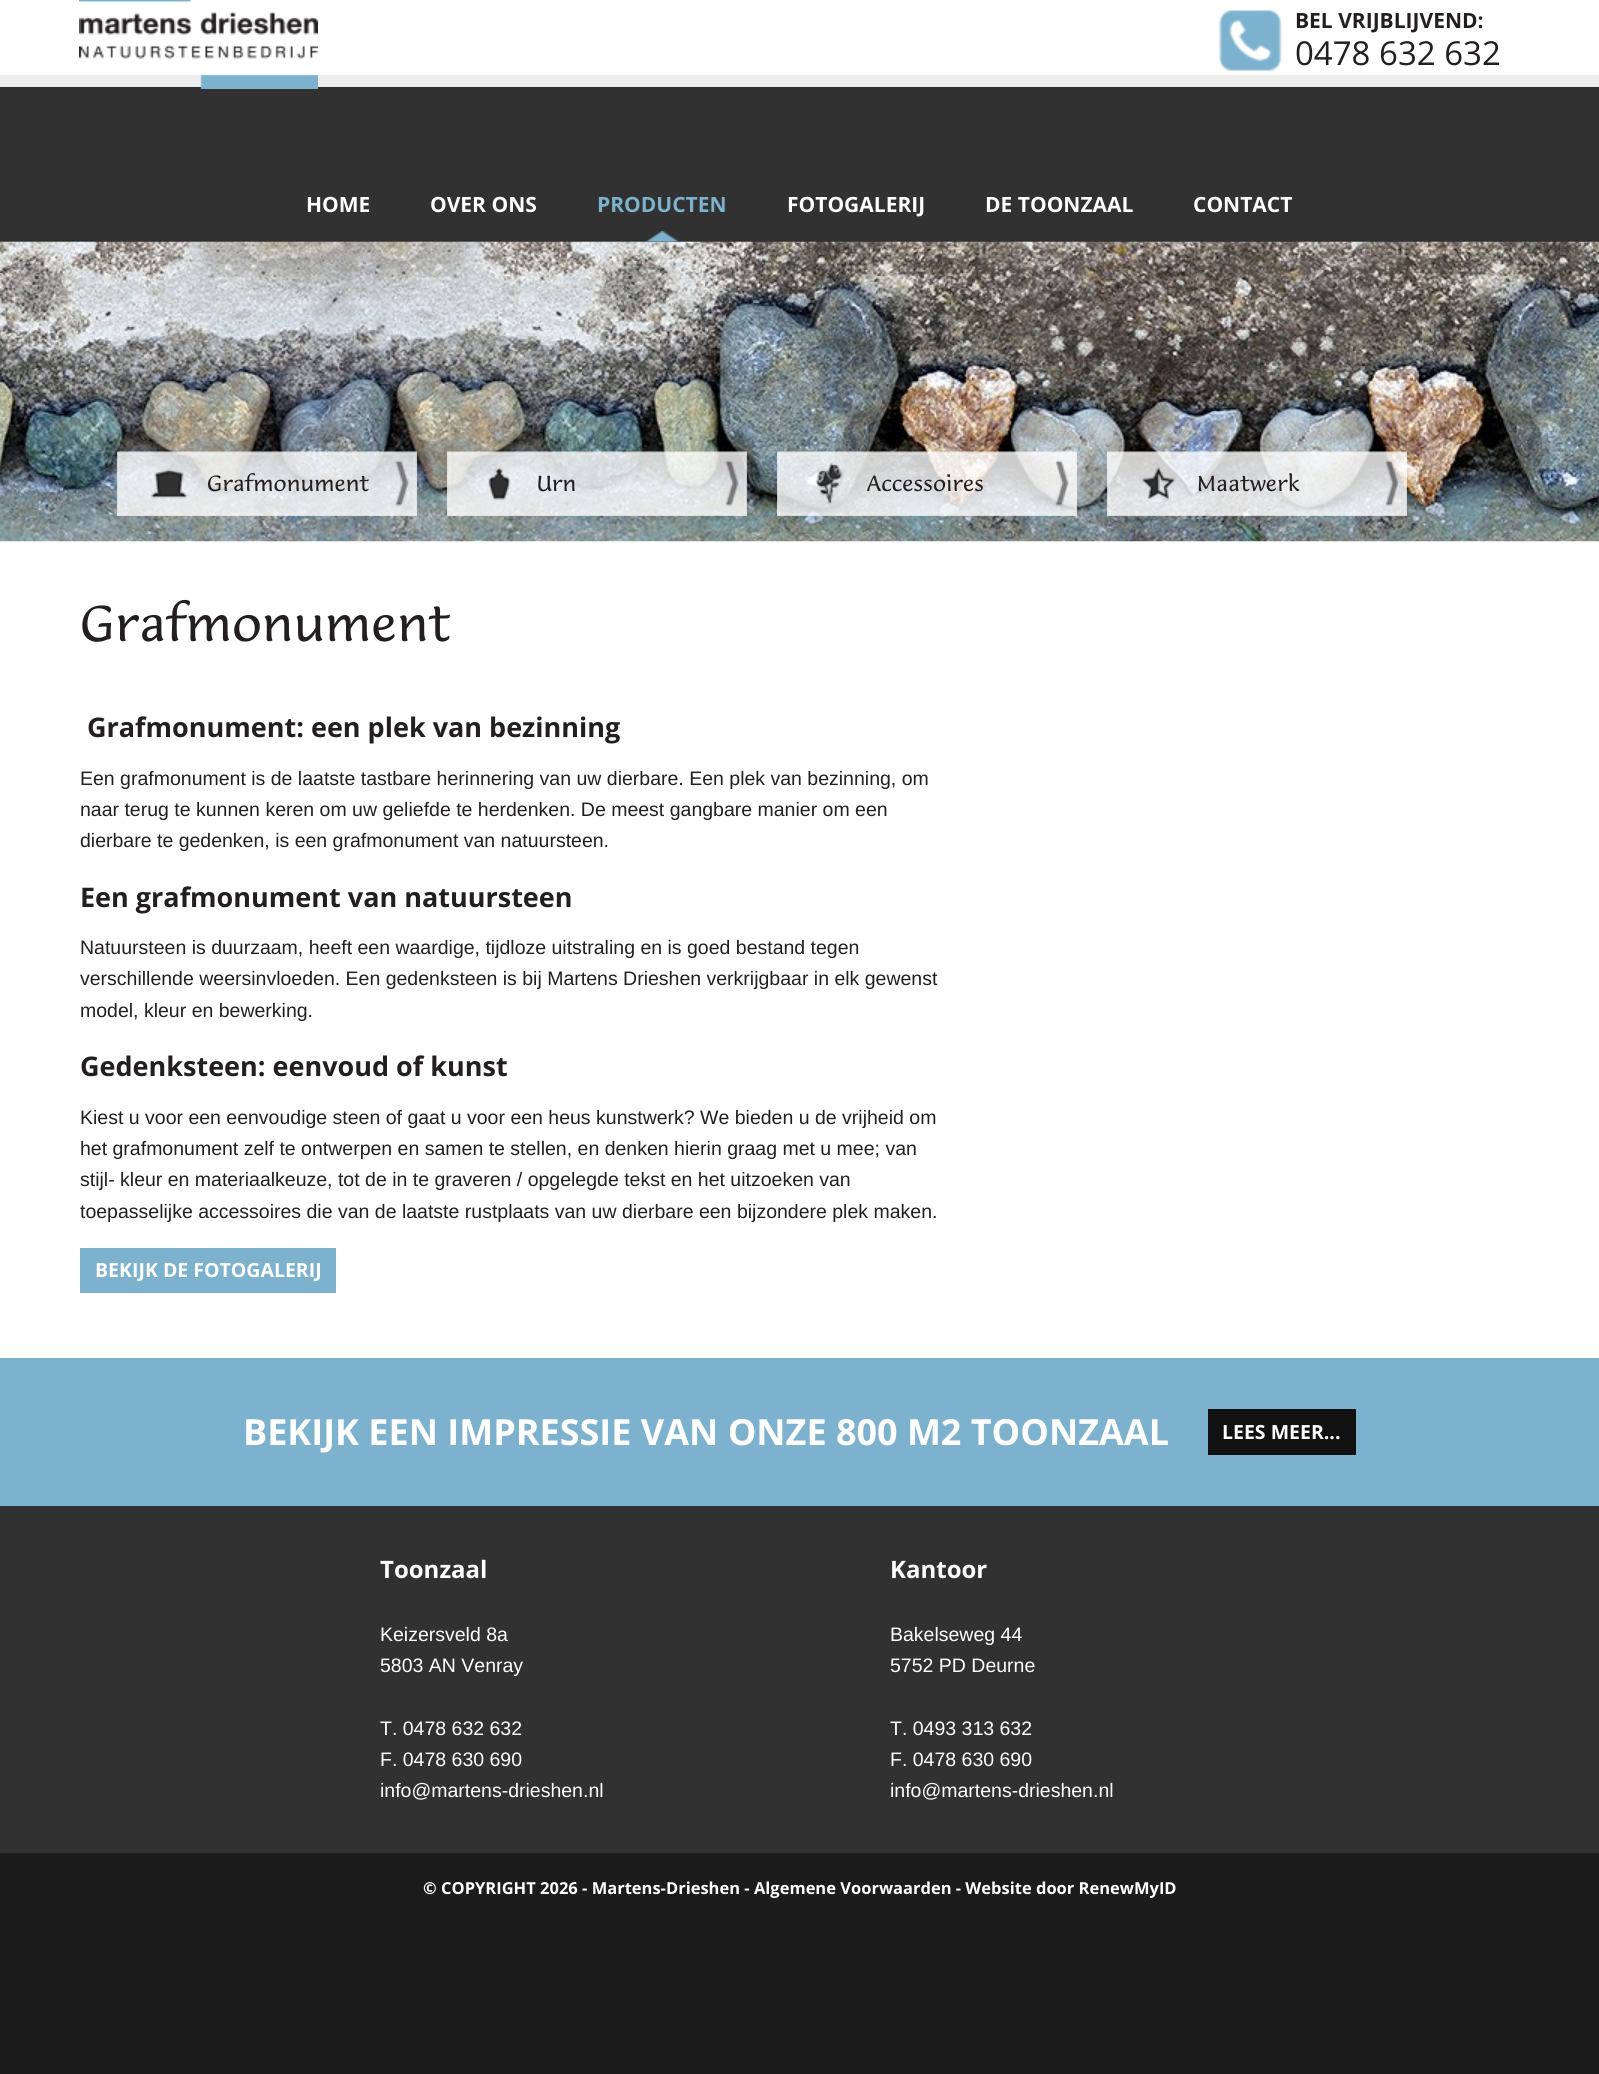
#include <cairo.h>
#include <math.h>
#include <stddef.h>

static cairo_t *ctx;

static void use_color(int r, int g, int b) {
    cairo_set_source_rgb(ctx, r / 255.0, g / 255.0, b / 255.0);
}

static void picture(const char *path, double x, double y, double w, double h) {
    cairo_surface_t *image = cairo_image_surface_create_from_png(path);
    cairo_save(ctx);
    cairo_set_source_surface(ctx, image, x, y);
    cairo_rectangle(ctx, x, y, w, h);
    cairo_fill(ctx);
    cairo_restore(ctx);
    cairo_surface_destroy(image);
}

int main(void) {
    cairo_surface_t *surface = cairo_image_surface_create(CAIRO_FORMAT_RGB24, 1599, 2074);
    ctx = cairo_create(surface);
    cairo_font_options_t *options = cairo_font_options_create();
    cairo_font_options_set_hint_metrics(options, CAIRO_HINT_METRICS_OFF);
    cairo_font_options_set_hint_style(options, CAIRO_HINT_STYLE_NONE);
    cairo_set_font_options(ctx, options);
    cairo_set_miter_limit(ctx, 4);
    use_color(255, 255, 255);
    cairo_paint(ctx);
    use_color(238, 238, 238);
    cairo_rectangle(ctx, 0, 75, 1599, 12);
    cairo_fill(ctx);
    use_color(49, 49, 49);
    cairo_rectangle(ctx, 0, 87, 1599, 155);
    cairo_fill(ctx);
    picture("img1.png", 79, 0, 239, 89);
    picture("img2.png", 1219, 10, 63, 61);
    cairo_select_font_face(ctx, "Open Sans", CAIRO_FONT_SLANT_NORMAL, CAIRO_FONT_WEIGHT_BOLD);
    cairo_set_font_size(ctx, 21);
    use_color(35, 31, 32);
    cairo_move_to(ctx, 1295, 28);
    cairo_show_text(ctx, "BEL VRIJBLIJVEND:");
    cairo_select_font_face(ctx, "Open Sans", CAIRO_FONT_SLANT_NORMAL, CAIRO_FONT_WEIGHT_NORMAL);
    cairo_set_font_size(ctx, 33);
    cairo_move_to(ctx, 1295, 65);
    cairo_show_text(ctx, "0478 632 632");
    cairo_select_font_face(ctx, "Open Sans", CAIRO_FONT_SLANT_NORMAL, CAIRO_FONT_WEIGHT_BOLD);
    cairo_set_font_size(ctx, 21);
    use_color(255, 255, 255);
    cairo_move_to(ctx, 306, 212);
    cairo_show_text(ctx, "HOME");
    cairo_move_to(ctx, 430, 212);
    cairo_show_text(ctx, "OVER ONS");
    picture("img4.png", 0, 241, 1599, 301);
    picture("img3.png", 646, 231, 32, 11);
    use_color(125, 178, 206);
    cairo_move_to(ctx, 597, 212);
    cairo_show_text(ctx, "PRODUCTEN");
    use_color(255, 255, 255);
    cairo_move_to(ctx, 787, 212);
    cairo_show_text(ctx, "FOTOGALERIJ");
    cairo_move_to(ctx, 985, 212);
    cairo_show_text(ctx, "DE TOONZAAL");
    cairo_move_to(ctx, 1193, 212);
    cairo_show_text(ctx, "CONTACT");
    picture("img5.png", 117, 451, 300, 65);
    cairo_select_font_face(ctx, "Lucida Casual", CAIRO_FONT_SLANT_NORMAL, CAIRO_FONT_WEIGHT_NORMAL);
    use_color(35, 31, 32);
    cairo_move_to(ctx, 207, 491);
    cairo_show_text(ctx, "Grafmonument");
    picture("img6.png", 447, 451, 300, 65);
    cairo_move_to(ctx, 537, 491);
    cairo_show_text(ctx, "Urn");
    picture("img7.png", 777, 451, 300, 65);
    cairo_move_to(ctx, 867, 491);
    cairo_show_text(ctx, "Accessoires");
    picture("img8.png", 1107, 451, 300, 65);
    cairo_move_to(ctx, 1197, 491);
    cairo_show_text(ctx, "Maatwerk");
    cairo_set_font_size(ctx, 48);
    cairo_move_to(ctx, 80, 641);
    cairo_show_text(ctx, "Grafmonument");
    cairo_select_font_face(ctx, "Open Sans", CAIRO_FONT_SLANT_NORMAL, CAIRO_FONT_WEIGHT_BOLD);
    cairo_set_font_size(ctx, 27);
    cairo_move_to(ctx, 87, 737);
    cairo_show_text(ctx, "Grafmonument: een plek van bezinning");
    cairo_select_font_face(ctx, "Liberation Sans", CAIRO_FONT_SLANT_NORMAL, CAIRO_FONT_WEIGHT_NORMAL);
    cairo_set_font_size(ctx, 19.5);
    cairo_move_to(ctx, 80, 785);
    cairo_show_text(ctx, "Een grafmonument is de laatste tastbare herinnering van uw dierbare. Een plek van bezinning, om");
    cairo_move_to(ctx, 80, 816);
    cairo_show_text(ctx, "naar terug te kunnen keren om uw geliefde te herdenken. De meest gangbare manier om een");
    cairo_move_to(ctx, 80, 847);
    cairo_show_text(ctx, "dierbare te gedenken, is een grafmonument van natuursteen.");
    cairo_select_font_face(ctx, "Open Sans", CAIRO_FONT_SLANT_NORMAL, CAIRO_FONT_WEIGHT_BOLD);
    cairo_set_font_size(ctx, 27);
    cairo_move_to(ctx, 80, 907);
    cairo_show_text(ctx, "Een grafmonument van natuursteen");
    cairo_select_font_face(ctx, "Liberation Sans", CAIRO_FONT_SLANT_NORMAL, CAIRO_FONT_WEIGHT_NORMAL);
    cairo_set_font_size(ctx, 19.5);
    cairo_move_to(ctx, 80, 954);
    cairo_show_text(ctx, "Natuursteen is duurzaam, heeft een waardige, tijdloze uitstraling en is goed bestand tegen");
    cairo_move_to(ctx, 80, 985);
    cairo_show_text(ctx, "verschillende weersinvloeden. Een gedenksteen is bij Martens Drieshen verkrijgbaar in elk gewenst");
    cairo_move_to(ctx, 80, 1017);
    cairo_show_text(ctx, "model, kleur en bewerking.");
    cairo_select_font_face(ctx, "Open Sans", CAIRO_FONT_SLANT_NORMAL, CAIRO_FONT_WEIGHT_BOLD);
    cairo_set_font_size(ctx, 27);
    cairo_move_to(ctx, 80, 1076);
    cairo_show_text(ctx, "Gedenksteen: eenvoud of kunst");
    cairo_select_font_face(ctx, "Liberation Sans", CAIRO_FONT_SLANT_NORMAL, CAIRO_FONT_WEIGHT_NORMAL);
    cairo_set_font_size(ctx, 19.5);
    cairo_move_to(ctx, 80, 1124);
    cairo_show_text(ctx, "Kiest u voor een eenvoudige steen of gaat u voor een heus kunstwerk? We bieden u de vrijheid om");
    cairo_move_to(ctx, 80, 1155);
    cairo_show_text(ctx, "het grafmonument zelf te ontwerpen en samen te stellen, en denken hierin graag met u mee; van");
    cairo_move_to(ctx, 80, 1186);
    cairo_show_text(ctx, "stijl- kleur en materiaalkeuze, tot de in te graveren / opgelegde tekst en het uitzoeken van");
    cairo_move_to(ctx, 80, 1218);
    cairo_show_text(ctx, "toepasselijke accessoires die van de laatste rustplaats van uw dierbare een bijzondere plek maken.");
    use_color(125, 178, 206);
    cairo_rectangle(ctx, 80, 1248, 256, 45);
    cairo_fill(ctx);
    cairo_select_font_face(ctx, "Open Sans", CAIRO_FONT_SLANT_NORMAL, CAIRO_FONT_WEIGHT_BOLD);
    use_color(255, 255, 255);
    cairo_move_to(ctx, 95, 1277);
    cairo_show_text(ctx, "BEKIJK DE FOTOGALERIJ");
    use_color(125, 178, 206);
    cairo_rectangle(ctx, 0, 1358, 1599, 148);
    cairo_fill(ctx);
    cairo_set_font_size(ctx, 36);
    use_color(255, 255, 255);
    cairo_move_to(ctx, 243, 1445);
    cairo_show_text(ctx, "BEKIJK EEN IMPRESSIE VAN ONZE 800 M2 TOONZAAL");
    use_color(17, 17, 17);
    cairo_rectangle(ctx, 1208, 1409, 148, 46);
    cairo_fill(ctx);
    cairo_set_font_size(ctx, 19.5);
    use_color(255, 255, 255);
    cairo_move_to(ctx, 1222, 1439);
    cairo_show_text(ctx, "LEES MEER...");
    use_color(49, 49, 49);
    cairo_rectangle(ctx, 0, 1506, 1599, 347);
    cairo_fill(ctx);
    cairo_set_font_size(ctx, 24);
    use_color(255, 255, 255);
    cairo_move_to(ctx, 380, 1578);
    cairo_show_text(ctx, "Toonzaal");
    cairo_select_font_face(ctx, "Liberation Sans", CAIRO_FONT_SLANT_NORMAL, CAIRO_FONT_WEIGHT_NORMAL);
    cairo_set_font_size(ctx, 19.5);
    cairo_move_to(ctx, 380, 1641);
    cairo_show_text(ctx, "Keizersveld 8a");
    cairo_move_to(ctx, 380, 1672);
    cairo_show_text(ctx, "5803 AN Venray");
    cairo_move_to(ctx, 380, 1735);
    cairo_show_text(ctx, "T. 0478 632 632");
    cairo_move_to(ctx, 380, 1766);
    cairo_show_text(ctx, "F. 0478 630 690");
    cairo_move_to(ctx, 380, 1797);
    cairo_show_text(ctx, "info@martens-drieshen.nl");
    cairo_select_font_face(ctx, "Open Sans", CAIRO_FONT_SLANT_NORMAL, CAIRO_FONT_WEIGHT_BOLD);
    cairo_set_font_size(ctx, 24);
    cairo_move_to(ctx, 890, 1578);
    cairo_show_text(ctx, "Kantoor");
    cairo_select_font_face(ctx, "Liberation Sans", CAIRO_FONT_SLANT_NORMAL, CAIRO_FONT_WEIGHT_NORMAL);
    cairo_set_font_size(ctx, 19.5);
    cairo_move_to(ctx, 890, 1641);
    cairo_show_text(ctx, "Bakelseweg 44");
    cairo_move_to(ctx, 890, 1672);
    cairo_show_text(ctx, "5752 PD Deurne");
    cairo_move_to(ctx, 890, 1735);
    cairo_show_text(ctx, "T. 0493 313 632");
    cairo_move_to(ctx, 890, 1766);
    cairo_show_text(ctx, "F. 0478 630 690");
    cairo_move_to(ctx, 890, 1797);
    cairo_show_text(ctx, "info@martens-drieshen.nl");
    use_color(28, 28, 28);
    cairo_rectangle(ctx, 0, 1853, 1599, 221);
    cairo_fill(ctx);
    cairo_select_font_face(ctx, "Open Sans", CAIRO_FONT_SLANT_NORMAL, CAIRO_FONT_WEIGHT_BOLD);
    cairo_set_font_size(ctx, 16.5);
    use_color(255, 255, 255);
    cairo_move_to(ctx, 423, 1894);
    cairo_show_text(ctx, "© COPYRIGHT 2026 - Martens-Drieshen - Algemene Voorwaarden - Website door RenewMyID");
    cairo_surface_write_to_png(surface, "result.png");
    cairo_font_options_destroy(options);
    cairo_destroy(ctx);
    cairo_surface_destroy(surface);
    return 0;
}
